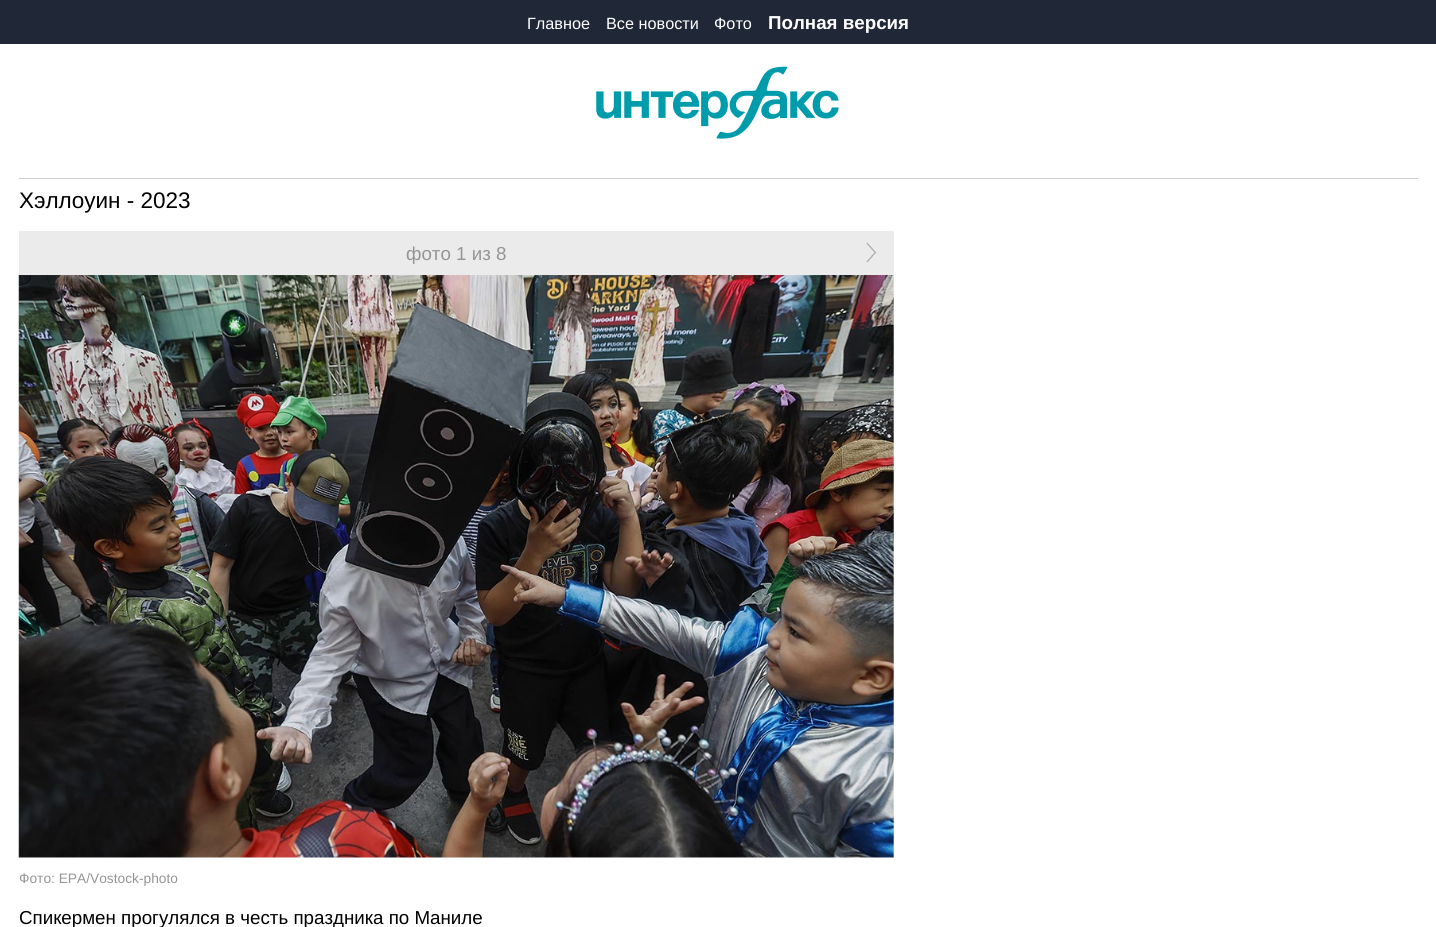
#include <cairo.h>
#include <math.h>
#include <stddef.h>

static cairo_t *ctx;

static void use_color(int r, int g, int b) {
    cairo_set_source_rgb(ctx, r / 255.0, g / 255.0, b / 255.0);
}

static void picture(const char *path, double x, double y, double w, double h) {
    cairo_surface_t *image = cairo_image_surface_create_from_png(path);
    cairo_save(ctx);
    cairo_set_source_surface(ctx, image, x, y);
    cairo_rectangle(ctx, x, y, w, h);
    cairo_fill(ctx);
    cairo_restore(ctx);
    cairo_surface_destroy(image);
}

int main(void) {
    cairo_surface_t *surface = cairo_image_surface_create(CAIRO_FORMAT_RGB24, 1436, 927);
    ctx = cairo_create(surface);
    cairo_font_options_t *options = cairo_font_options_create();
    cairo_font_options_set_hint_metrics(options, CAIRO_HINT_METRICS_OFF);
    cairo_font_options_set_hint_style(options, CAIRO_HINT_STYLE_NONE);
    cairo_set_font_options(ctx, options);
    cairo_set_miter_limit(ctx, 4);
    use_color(255, 255, 255);
    cairo_paint(ctx);
    use_color(32, 39, 54);
    cairo_rectangle(ctx, 0, 0, 1436, 44);
    cairo_fill(ctx);
    cairo_select_font_face(ctx, "Liberation Sans", CAIRO_FONT_SLANT_NORMAL, CAIRO_FONT_WEIGHT_NORMAL);
    cairo_set_font_size(ctx, 16.25);
    use_color(255, 255, 255);
    cairo_move_to(ctx, 527, 29);
    cairo_show_text(ctx, "Главное");
    cairo_move_to(ctx, 606, 29);
    cairo_show_text(ctx, "Все новости");
    cairo_move_to(ctx, 714, 29);
    cairo_show_text(ctx, "Фото");
    cairo_select_font_face(ctx, "Liberation Sans", CAIRO_FONT_SLANT_NORMAL, CAIRO_FONT_WEIGHT_BOLD);
    cairo_set_font_size(ctx, 18.75);
    cairo_move_to(ctx, 768, 29);
    cairo_show_text(ctx, "Полная версия");
    picture("img1.png", 596, 66, 243, 73);
    use_color(204, 204, 204);
    cairo_rectangle(ctx, 19, 178, 1399, 1);
    cairo_fill(ctx);
    cairo_select_font_face(ctx, "Liberation Sans", CAIRO_FONT_SLANT_NORMAL, CAIRO_FONT_WEIGHT_NORMAL);
    cairo_set_font_size(ctx, 22.5);
    use_color(0, 0, 0);
    cairo_move_to(ctx, 19, 208);
    cairo_show_text(ctx, "Хэллоуин - 2023");
    use_color(235, 235, 235);
    cairo_rectangle(ctx, 19, 231, 875, 44);
    cairo_fill(ctx);
    cairo_set_font_size(ctx, 18.75);
    use_color(149, 149, 149);
    cairo_move_to(ctx, 406, 260);
    cairo_show_text(ctx, "фото 1 из 8");
    picture("img2.png", 866, 242, 11, 21);
    picture("img3.png", 18, 275, 876, 583);
    cairo_set_font_size(ctx, 13.75);
    cairo_move_to(ctx, 19, 883);
    cairo_show_text(ctx, "Фото: EPA/Vostock-photo");
    cairo_set_font_size(ctx, 18.75);
    use_color(0, 0, 0);
    cairo_move_to(ctx, 19, 924);
    cairo_show_text(ctx, "Спикермен прогулялся в честь праздника по Маниле");
    cairo_surface_write_to_png(surface, "result.png");
    cairo_font_options_destroy(options);
    cairo_destroy(ctx);
    cairo_surface_destroy(surface);
    return 0;
}
